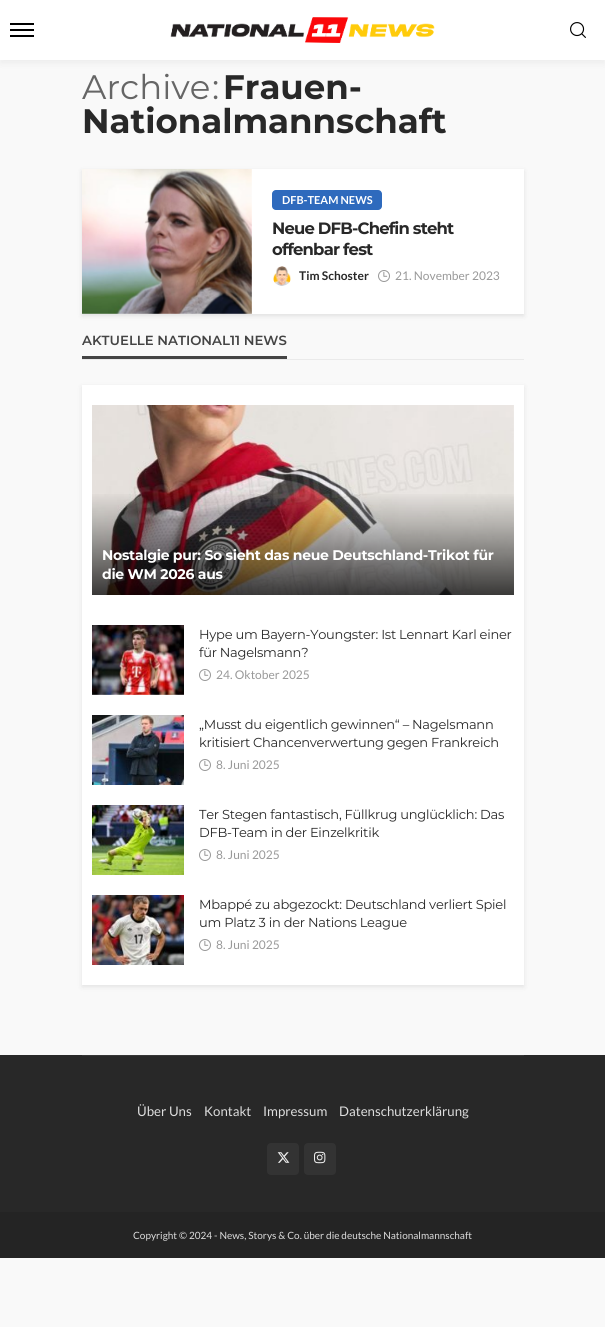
#include <cairo.h>
#include <math.h>
#include <stddef.h>

static cairo_t *ctx;

static void use_color(int r, int g, int b) {
    cairo_set_source_rgb(ctx, r / 255.0, g / 255.0, b / 255.0);
}

static void spaced_text(double x, double y, const char *s, double letter, double word) {
    cairo_move_to(ctx, x, y);
    while (*s) {
        char ch[5] = {0};
        int n = 0;
        do ch[n++] = *s++; while ((*s & 0xC0) == 0x80);
        cairo_show_text(ctx, ch);
        cairo_rel_move_to(ctx, letter + word * (*ch == ' '), 0);
    }
}

static void round_rect(double x, double y, double w, double h, double r) {
    cairo_new_sub_path(ctx);
    cairo_arc(ctx, x + w - r, y + h - r, r, 0, M_PI / 2);
    cairo_arc(ctx, x + r, y + h - r, r, M_PI / 2, M_PI);
    cairo_arc(ctx, x + r, y + r, r, M_PI, 1.5 * M_PI);
    cairo_arc(ctx, x + w - r, y + r, r, 1.5 * M_PI, 2 * M_PI);
    cairo_close_path(ctx);
}

static void shadow(double x, double y, double w, double h, double r, double blur, double alpha) {
    cairo_push_group_with_content(ctx, CAIRO_CONTENT_ALPHA);
    cairo_set_operator(ctx, CAIRO_OPERATOR_SOURCE);
    for (int i = 15; i >= -15 && fmin(w, h) + blur * i / 3 > 0; i -= 2) {
        double e = blur * i / 6;
        cairo_set_source_rgba(ctx, 0, 0, 0, alpha * erfc((i - 1) / 8.5) / 2);
        round_rect(x - e, y - e, w + 2 * e, h + 2 * e, fmax(0, fmin(r + e + blur * .6, fmin(w, h) / 2 + e)));
        cairo_fill(ctx);
    }
    cairo_pattern_t *soft = cairo_pop_group(ctx);
    cairo_mask(ctx, soft);
    cairo_pattern_destroy(soft);
}

static void picture(const char *path, double x, double y, double w, double h) {
    cairo_surface_t *image = cairo_image_surface_create_from_png(path);
    cairo_save(ctx);
    cairo_set_source_surface(ctx, image, x, y);
    cairo_rectangle(ctx, x, y, w, h);
    cairo_fill(ctx);
    cairo_restore(ctx);
    cairo_surface_destroy(image);
}

int main(void) {
    cairo_surface_t *surface = cairo_image_surface_create(CAIRO_FORMAT_RGB24, 605, 1327);
    ctx = cairo_create(surface);
    cairo_font_options_t *options = cairo_font_options_create();
    cairo_font_options_set_hint_metrics(options, CAIRO_HINT_METRICS_OFF);
    cairo_font_options_set_hint_style(options, CAIRO_HINT_STYLE_NONE);
    cairo_set_font_options(ctx, options);
    cairo_set_miter_limit(ctx, 4);
    cairo_pattern_t *gradient;
    use_color(249, 249, 249);
    cairo_paint(ctx);
    use_color(28, 28, 28);
    shadow(0, 4, 605, 60, 0, 3, 0.05);
    use_color(255, 255, 255);
    cairo_rectangle(ctx, 0, 0, 605, 60);
    cairo_fill(ctx);
    use_color(0, 0, 0);
    cairo_rectangle(ctx, 10, 29, 24, 2);
    cairo_fill(ctx);
    cairo_rectangle(ctx, 10, 23, 24, 2);
    cairo_fill(ctx);
    cairo_rectangle(ctx, 10, 35, 24, 2);
    cairo_fill(ctx);
    picture("img1.png", 170, 17, 265, 26);
    picture("img2.png", 570, 22, 16, 16);
    cairo_select_font_face(ctx, "Montserrat", CAIRO_FONT_SLANT_NORMAL, CAIRO_FONT_WEIGHT_NORMAL);
    cairo_set_font_size(ctx, 34);
    use_color(102, 102, 102);
    cairo_move_to(ctx, 82, 99);
    cairo_show_text(ctx, "Archive");
    cairo_move_to(ctx, 212, 99);
    cairo_show_text(ctx, ":");
    cairo_select_font_face(ctx, "Montserrat", CAIRO_FONT_SLANT_NORMAL, CAIRO_FONT_WEIGHT_BOLD);
    use_color(40, 40, 40);
    cairo_move_to(ctx, 223, 99);
    cairo_show_text(ctx, "Frauen-");
    cairo_move_to(ctx, 82, 133);
    cairo_show_text(ctx, "Nationalmannschaft");
    use_color(0, 0, 0);
    shadow(82, 171, 442, 145, 0, 2.5, 0.1);
    use_color(255, 255, 255);
    cairo_rectangle(ctx, 82, 169, 442, 145);
    cairo_fill(ctx);
    picture("img3.png", 82, 169, 170, 145);
    use_color(46, 106, 189);
    round_rect(272, 190, 110, 20, 4);
    cairo_fill(ctx);
    cairo_select_font_face(ctx, "Lato", CAIRO_FONT_SLANT_NORMAL, CAIRO_FONT_WEIGHT_BOLD);
    cairo_set_font_size(ctx, 11);
    use_color(255, 255, 255);
    cairo_move_to(ctx, 282, 204);
    cairo_show_text(ctx, "DFB-TEAM NEWS");
    cairo_select_font_face(ctx, "Montserrat", CAIRO_FONT_SLANT_NORMAL, CAIRO_FONT_WEIGHT_BOLD);
    cairo_set_font_size(ctx, 16.4);
    use_color(40, 40, 40);
    spaced_text(272, 234, "Neue DFB-Chefin steht", -0.8, 0);
    spaced_text(272, 255, "offenbar fest", -0.8, 0);
    picture("img4.png", 273, 266, 18, 20);
    cairo_select_font_face(ctx, "Lato", CAIRO_FONT_SLANT_NORMAL, CAIRO_FONT_WEIGHT_BOLD);
    cairo_set_font_size(ctx, 12);
    cairo_move_to(ctx, 299, 280);
    cairo_show_text(ctx, "Tim Schoster");
    picture("img5.png", 378, 270, 12, 12);
    cairo_select_font_face(ctx, "Lato", CAIRO_FONT_SLANT_NORMAL, CAIRO_FONT_WEIGHT_NORMAL);
    use_color(153, 153, 153);
    cairo_move_to(ctx, 395, 280);
    cairo_show_text(ctx, "21. November 2023");
    use_color(234, 234, 234);
    cairo_rectangle(ctx, 82, 359, 442, 1);
    cairo_fill(ctx);
    use_color(68, 68, 68);
    cairo_rectangle(ctx, 82, 356, 205, 3);
    cairo_fill(ctx);
    cairo_select_font_face(ctx, "Montserrat SemiBold", CAIRO_FONT_SLANT_NORMAL, CAIRO_FONT_WEIGHT_NORMAL);
    cairo_set_font_size(ctx, 13.25);
    cairo_move_to(ctx, 82, 345);
    cairo_show_text(ctx, "AKTUELLE NATIONAL11 NEWS");
    use_color(28, 28, 28);
    shadow(82, 387, 442, 600, 0, 2.5, 0.1);
    use_color(255, 255, 255);
    cairo_rectangle(ctx, 82, 385, 442, 600);
    cairo_fill(ctx);
    picture("img6.png", 92, 405, 422, 190);
    gradient = cairo_pattern_create_linear(303, 491, 303, 595);
    cairo_pattern_add_color_stop_rgba(gradient, 0, 0, 0, 0, 0);
    cairo_pattern_add_color_stop_rgba(gradient, 0.3, 0, 0, 0, 0.2);
    cairo_pattern_add_color_stop_rgba(gradient, 1, 0, 0, 0, 0.75);
    cairo_set_source(ctx, gradient);
    cairo_pattern_destroy(gradient);
    cairo_rectangle(ctx, 92, 494, 422, 101);
    cairo_fill(ctx);
    cairo_select_font_face(ctx, "Montserrat", CAIRO_FONT_SLANT_NORMAL, CAIRO_FONT_WEIGHT_BOLD);
    cairo_set_font_size(ctx, 14);
    use_color(255, 255, 255);
    spaced_text(102, 560, "Nostalgie pur: So sieht das neue Deutschland-Trikot für", -0.28, 0);
    spaced_text(102, 579, "die WM 2026 aus", -0.28, 0);
    picture("img7.png", 92, 625, 92, 70);
    cairo_select_font_face(ctx, "Montserrat", CAIRO_FONT_SLANT_NORMAL, CAIRO_FONT_WEIGHT_NORMAL);
    cairo_set_font_size(ctx, 13);
    use_color(40, 40, 40);
    spaced_text(199, 639, "Hype um Bayern-Youngster: Ist Lennart Karl einer", -0.25, 0);
    spaced_text(199, 657, "für Nagelsmann?", -0.25, 0);
    picture("img5.png", 199, 669, 12, 12);
    cairo_select_font_face(ctx, "Lato", CAIRO_FONT_SLANT_NORMAL, CAIRO_FONT_WEIGHT_NORMAL);
    cairo_set_font_size(ctx, 12);
    use_color(153, 153, 153);
    cairo_move_to(ctx, 216, 679);
    cairo_show_text(ctx, "24. Oktober 2025");
    picture("img8.png", 92, 715, 92, 70);
    cairo_select_font_face(ctx, "Montserrat", CAIRO_FONT_SLANT_NORMAL, CAIRO_FONT_WEIGHT_NORMAL);
    cairo_set_font_size(ctx, 13);
    use_color(40, 40, 40);
    spaced_text(199, 729, "„Musst du eigentlich gewinnen“ – Nagelsmann", -0.25, 0);
    spaced_text(199, 747, "kritisiert Chancenverwertung gegen Frankreich", -0.25, 0);
    picture("img5.png", 199, 759, 12, 12);
    cairo_select_font_face(ctx, "Lato", CAIRO_FONT_SLANT_NORMAL, CAIRO_FONT_WEIGHT_NORMAL);
    cairo_set_font_size(ctx, 12);
    use_color(153, 153, 153);
    cairo_move_to(ctx, 216, 769);
    cairo_show_text(ctx, "8. Juni 2025");
    picture("img9.png", 92, 805, 92, 70);
    cairo_select_font_face(ctx, "Montserrat", CAIRO_FONT_SLANT_NORMAL, CAIRO_FONT_WEIGHT_NORMAL);
    cairo_set_font_size(ctx, 13);
    use_color(40, 40, 40);
    spaced_text(199, 819, "Ter Stegen fantastisch, Füllkrug unglücklich: Das", -0.25, 0);
    spaced_text(199, 837, "DFB-Team in der Einzelkritik", -0.25, 0);
    picture("img5.png", 199, 849, 12, 12);
    cairo_select_font_face(ctx, "Lato", CAIRO_FONT_SLANT_NORMAL, CAIRO_FONT_WEIGHT_NORMAL);
    cairo_set_font_size(ctx, 12);
    use_color(153, 153, 153);
    cairo_move_to(ctx, 216, 859);
    cairo_show_text(ctx, "8. Juni 2025");
    picture("img10.png", 92, 895, 92, 70);
    cairo_select_font_face(ctx, "Montserrat", CAIRO_FONT_SLANT_NORMAL, CAIRO_FONT_WEIGHT_NORMAL);
    cairo_set_font_size(ctx, 13);
    use_color(40, 40, 40);
    spaced_text(199, 909, "Mbappé zu abgezockt: Deutschland verliert Spiel", -0.25, 0);
    spaced_text(199, 927, "um Platz 3 in der Nations League", -0.25, 0);
    picture("img5.png", 199, 939, 12, 12);
    cairo_select_font_face(ctx, "Lato", CAIRO_FONT_SLANT_NORMAL, CAIRO_FONT_WEIGHT_NORMAL);
    cairo_set_font_size(ctx, 12);
    use_color(153, 153, 153);
    cairo_move_to(ctx, 216, 949);
    cairo_show_text(ctx, "8. Juni 2025");
    use_color(40, 40, 40);
    cairo_rectangle(ctx, 0, 1055, 605, 157);
    cairo_fill(ctx);
    use_color(55, 55, 55);
    cairo_rectangle(ctx, 82, 1055, 442, 1);
    cairo_fill(ctx);
    cairo_set_font_size(ctx, 13.25);
    use_color(221, 221, 221);
    cairo_move_to(ctx, 137, 1116);
    cairo_show_text(ctx, "Über Uns");
    cairo_move_to(ctx, 204, 1116);
    cairo_show_text(ctx, "Kontakt");
    cairo_move_to(ctx, 263, 1116);
    cairo_show_text(ctx, "Impressum");
    cairo_move_to(ctx, 339, 1116);
    cairo_show_text(ctx, "Datenschutzerklärung");
    use_color(51, 51, 51);
    round_rect(267, 1143, 32, 32, 4);
    cairo_fill(ctx);
    picture("img11.png", 277, 1152, 13, 11);
    round_rect(304, 1143, 32, 32, 4);
    cairo_fill(ctx);
    picture("img12.png", 314, 1151, 12, 13);
    use_color(36, 36, 36);
    cairo_rectangle(ctx, 0, 1212, 605, 46);
    cairo_fill(ctx);
    cairo_set_font_size(ctx, 10);
    use_color(221, 221, 221);
    cairo_move_to(ctx, 133, 1239);
    cairo_show_text(ctx, "Copyright © 2024 - News, Storys & Co. über die deutsche Nationalmannschaft");
    cairo_surface_write_to_png(surface, "result.png");
    cairo_font_options_destroy(options);
    cairo_destroy(ctx);
    cairo_surface_destroy(surface);
    return 0;
}
